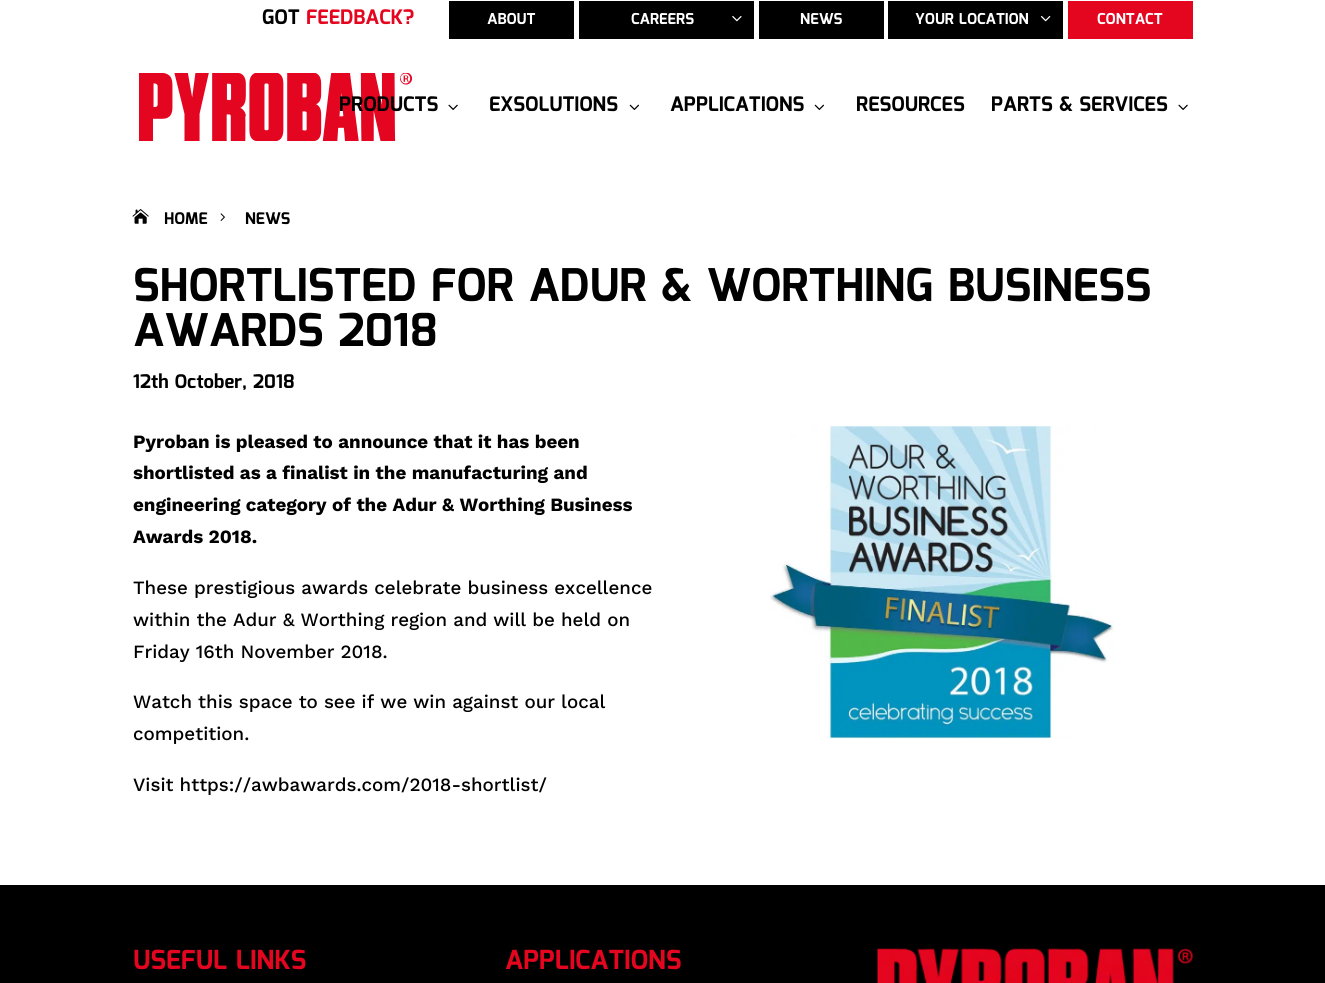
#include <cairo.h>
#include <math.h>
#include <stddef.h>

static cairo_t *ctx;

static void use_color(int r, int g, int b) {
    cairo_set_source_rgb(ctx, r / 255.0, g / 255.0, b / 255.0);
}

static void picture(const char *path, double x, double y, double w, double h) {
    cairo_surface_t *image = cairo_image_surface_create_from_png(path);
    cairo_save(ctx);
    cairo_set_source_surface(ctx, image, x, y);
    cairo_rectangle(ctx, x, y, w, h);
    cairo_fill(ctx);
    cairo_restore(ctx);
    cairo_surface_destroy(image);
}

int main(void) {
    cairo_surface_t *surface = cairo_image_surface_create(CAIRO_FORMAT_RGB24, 1325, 983);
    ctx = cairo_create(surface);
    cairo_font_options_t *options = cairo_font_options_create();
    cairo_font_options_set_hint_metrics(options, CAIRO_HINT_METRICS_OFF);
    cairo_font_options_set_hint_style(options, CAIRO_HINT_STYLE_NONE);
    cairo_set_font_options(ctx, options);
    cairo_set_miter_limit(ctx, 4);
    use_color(255, 255, 255);
    cairo_paint(ctx);
    cairo_select_font_face(ctx, "Mina", CAIRO_FONT_SLANT_NORMAL, CAIRO_FONT_WEIGHT_BOLD);
    cairo_set_font_size(ctx, 20);
    use_color(0, 0, 0);
    cairo_move_to(ctx, 262, 24);
    cairo_show_text(ctx, "GOT");
    use_color(228, 5, 31);
    cairo_move_to(ctx, 306, 24);
    cairo_show_text(ctx, "FEEDBACK?");
    use_color(0, 0, 0);
    cairo_rectangle(ctx, 449, 1, 125, 38);
    cairo_fill(ctx);
    cairo_set_font_size(ctx, 15);
    use_color(255, 255, 255);
    cairo_move_to(ctx, 487, 24);
    cairo_show_text(ctx, "ABOUT");
    use_color(0, 0, 0);
    cairo_rectangle(ctx, 579, 1, 175, 38);
    cairo_fill(ctx);
    use_color(255, 255, 255);
    cairo_move_to(ctx, 631, 24);
    cairo_show_text(ctx, "CAREERS");
    picture("img1.png", 732, 16, 10, 6);
    use_color(0, 0, 0);
    cairo_rectangle(ctx, 759, 1, 125, 38);
    cairo_fill(ctx);
    use_color(255, 255, 255);
    cairo_move_to(ctx, 800, 24);
    cairo_show_text(ctx, "NEWS");
    use_color(0, 0, 0);
    cairo_rectangle(ctx, 888, 1, 175, 38);
    cairo_fill(ctx);
    use_color(255, 255, 255);
    cairo_move_to(ctx, 915, 24);
    cairo_show_text(ctx, "YOUR LOCATION");
    picture("img2.png", 1041, 16, 10, 6);
    use_color(228, 5, 31);
    cairo_rectangle(ctx, 1068, 1, 125, 38);
    cairo_fill(ctx);
    use_color(255, 255, 255);
    cairo_move_to(ctx, 1097, 24);
    cairo_show_text(ctx, "CONTACT");
    picture("img3.png", 139, 73, 273, 68);
    cairo_set_font_size(ctx, 20);
    use_color(0, 0, 0);
    cairo_move_to(ctx, 339, 111);
    cairo_show_text(ctx, "PRODUCTS");
    picture("img4.png", 448, 104, 10, 6);
    cairo_move_to(ctx, 489, 111);
    cairo_show_text(ctx, "EXSOLUTIONS");
    picture("img5.png", 629, 104, 10, 6);
    cairo_move_to(ctx, 670, 111);
    cairo_show_text(ctx, "APPLICATIONS");
    picture("img5.png", 814, 104, 10, 6);
    cairo_move_to(ctx, 856, 111);
    cairo_show_text(ctx, "RESOURCES");
    cairo_move_to(ctx, 991, 111);
    cairo_show_text(ctx, "PARTS & SERVICES");
    picture("img4.png", 1178, 104, 10, 6);
    picture("img6.png", 132, 209, 17, 15);
    cairo_set_font_size(ctx, 16);
    cairo_move_to(ctx, 164, 224);
    cairo_show_text(ctx, "HOME");
    picture("img7.png", 220, 213, 5, 8);
    cairo_move_to(ctx, 245, 224);
    cairo_show_text(ctx, "NEWS");
    cairo_set_font_size(ctx, 45);
    cairo_move_to(ctx, 133, 301);
    cairo_show_text(ctx, "SHORTLISTED FOR ADUR & WORTHING BUSINESS");
    cairo_move_to(ctx, 133, 346);
    cairo_show_text(ctx, "AWARDS 2018");
    cairo_set_font_size(ctx, 18.75);
    cairo_move_to(ctx, 133, 388);
    cairo_show_text(ctx, "12th October, 2018");
    picture("img8.png", 770, 426, 345, 313);
    cairo_select_font_face(ctx, "Work Sans", CAIRO_FONT_SLANT_NORMAL, CAIRO_FONT_WEIGHT_BOLD);
    cairo_move_to(ctx, 133, 448);
    cairo_show_text(ctx, "Pyroban is pleased to announce that it has been");
    cairo_move_to(ctx, 133, 479);
    cairo_show_text(ctx, "shortlisted as a finalist in the manufacturing and");
    cairo_move_to(ctx, 133, 511);
    cairo_show_text(ctx, "engineering category of the Adur & Worthing Business");
    cairo_move_to(ctx, 133, 543);
    cairo_show_text(ctx, "Awards 2018.");
    cairo_select_font_face(ctx, "Work Sans Medium", CAIRO_FONT_SLANT_NORMAL, CAIRO_FONT_WEIGHT_NORMAL);
    cairo_move_to(ctx, 133, 594);
    cairo_show_text(ctx, "These prestigious awards celebrate business excellence");
    cairo_move_to(ctx, 133, 626);
    cairo_show_text(ctx, "within the Adur & Worthing region and will be held on");
    cairo_move_to(ctx, 133, 658);
    cairo_show_text(ctx, "Friday 16th November 2018.");
    cairo_move_to(ctx, 133, 708);
    cairo_show_text(ctx, "Watch this space to see if we win against our local");
    cairo_move_to(ctx, 133, 740);
    cairo_show_text(ctx, "competition.");
    cairo_move_to(ctx, 133, 791);
    cairo_show_text(ctx, "Visit https://awbawards.com/2018-shortlist/");
    cairo_rectangle(ctx, 0, 885, 1325, 98);
    cairo_fill(ctx);
    cairo_select_font_face(ctx, "Mina", CAIRO_FONT_SLANT_NORMAL, CAIRO_FONT_WEIGHT_BOLD);
    cairo_set_font_size(ctx, 26.25);
    use_color(228, 5, 31);
    cairo_move_to(ctx, 133, 969);
    cairo_show_text(ctx, "USEFUL LINKS");
    cairo_move_to(ctx, 505, 969);
    cairo_show_text(ctx, "APPLICATIONS");
    picture("img9.png", 877, 948, 316, 35);
    cairo_surface_write_to_png(surface, "result.png");
    cairo_font_options_destroy(options);
    cairo_destroy(ctx);
    cairo_surface_destroy(surface);
    return 0;
}
